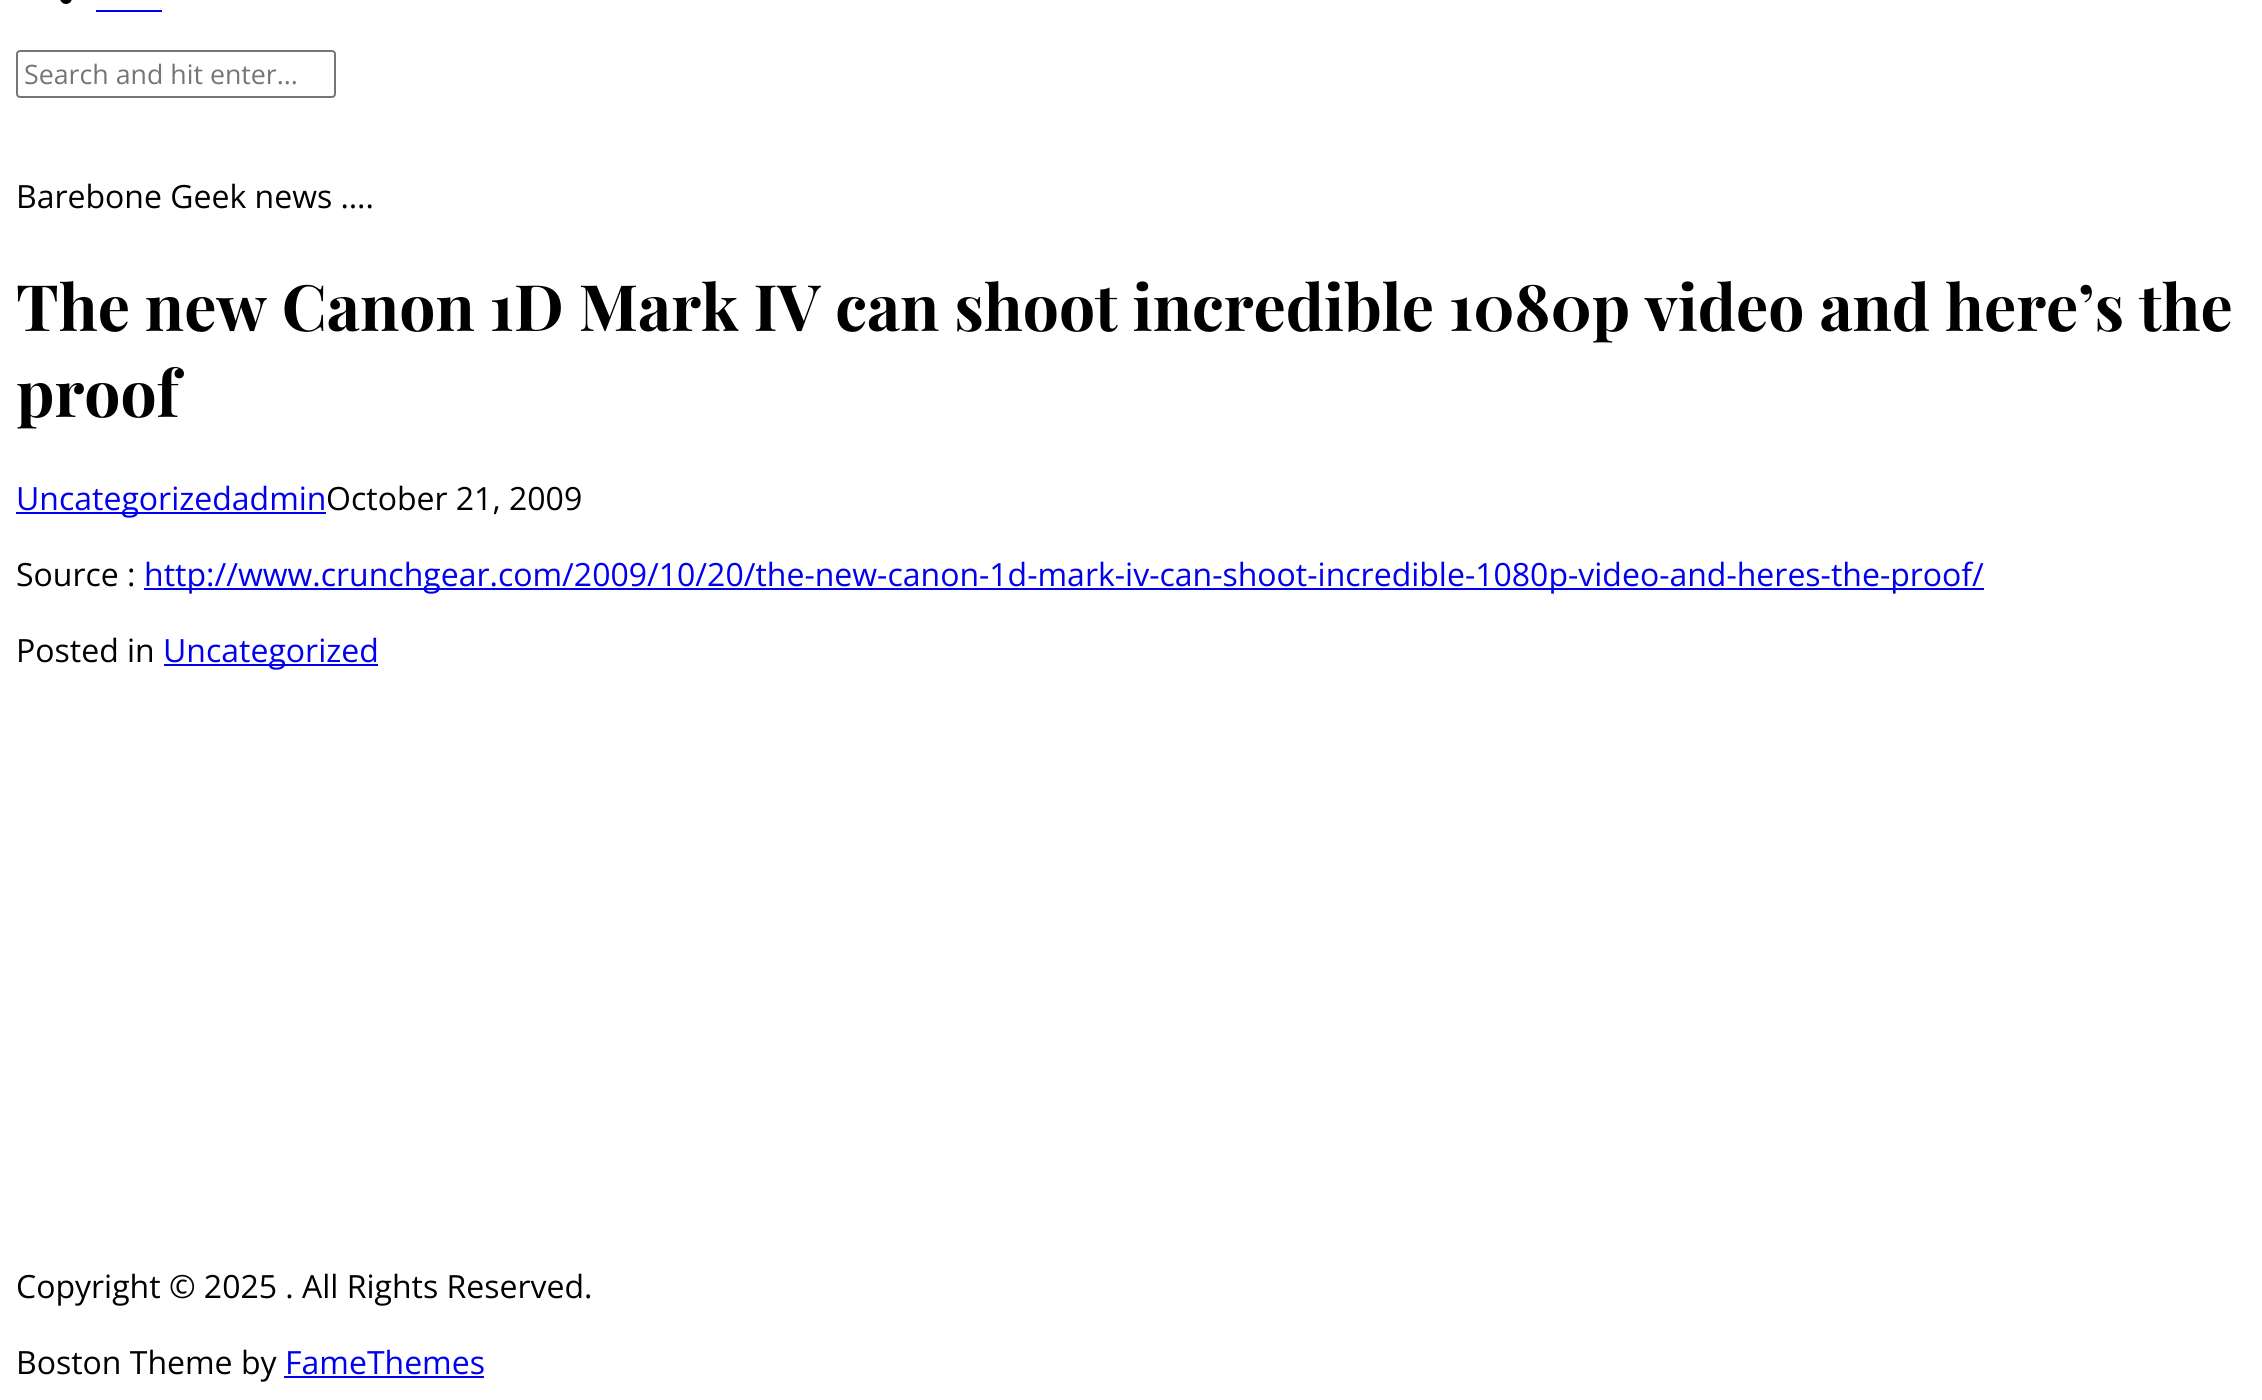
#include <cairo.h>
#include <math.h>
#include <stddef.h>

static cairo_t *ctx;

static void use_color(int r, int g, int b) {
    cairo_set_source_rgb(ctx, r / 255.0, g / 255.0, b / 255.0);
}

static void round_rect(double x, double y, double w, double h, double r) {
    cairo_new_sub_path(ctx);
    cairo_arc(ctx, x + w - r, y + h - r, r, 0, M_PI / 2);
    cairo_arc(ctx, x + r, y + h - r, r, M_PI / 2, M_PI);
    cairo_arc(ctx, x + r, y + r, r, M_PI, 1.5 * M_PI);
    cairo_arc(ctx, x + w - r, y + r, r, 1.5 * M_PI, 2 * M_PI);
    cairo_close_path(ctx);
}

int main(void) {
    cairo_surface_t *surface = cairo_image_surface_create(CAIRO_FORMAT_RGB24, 2262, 1400);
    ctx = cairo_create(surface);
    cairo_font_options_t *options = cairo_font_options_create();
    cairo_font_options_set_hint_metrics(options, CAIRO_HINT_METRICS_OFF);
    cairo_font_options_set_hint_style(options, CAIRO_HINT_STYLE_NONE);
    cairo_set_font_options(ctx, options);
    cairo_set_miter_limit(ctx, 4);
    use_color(255, 255, 255);
    cairo_paint(ctx);
    use_color(0, 0, 0);
    round_rect(60, -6, 12, 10, 6);
    cairo_fill(ctx);
    use_color(0, 0, 238);
    cairo_rectangle(ctx, 96, 10, 66, 2);
    cairo_fill(ctx);
    round_rect(17, 51, 318, 46, 3);
    use_color(118, 118, 118);
    cairo_stroke(ctx);
    cairo_select_font_face(ctx, "Open Sans", CAIRO_FONT_SLANT_NORMAL, CAIRO_FONT_WEIGHT_NORMAL);
    cairo_set_font_size(ctx, 26.75);
    use_color(117, 117, 117);
    cairo_move_to(ctx, 24, 84);
    cairo_show_text(ctx, "Search and hit enter...");
    cairo_set_font_size(ctx, 32);
    use_color(0, 0, 0);
    cairo_move_to(ctx, 16, 208);
    cairo_show_text(ctx, "Barebone Geek news ….");
    cairo_select_font_face(ctx, "Playfair Display", CAIRO_FONT_SLANT_NORMAL, CAIRO_FONT_WEIGHT_BOLD);
    cairo_set_font_size(ctx, 64);
    cairo_move_to(ctx, 16, 331);
    cairo_show_text(ctx, "The new Canon 1D Mark IV can shoot incredible 1080p video and here’s the");
    cairo_move_to(ctx, 16, 417);
    cairo_show_text(ctx, "proof");
    use_color(0, 0, 238);
    cairo_rectangle(ctx, 16, 512, 310, 2);
    cairo_fill(ctx);
    cairo_select_font_face(ctx, "Open Sans", CAIRO_FONT_SLANT_NORMAL, CAIRO_FONT_WEIGHT_NORMAL);
    cairo_set_font_size(ctx, 32);
    cairo_move_to(ctx, 16, 510);
    cairo_show_text(ctx, "Uncategorizedadmin");
    use_color(0, 0, 0);
    cairo_move_to(ctx, 326, 510);
    cairo_show_text(ctx, "October 21, 2009");
    cairo_move_to(ctx, 16, 586);
    cairo_show_text(ctx, "Source :");
    use_color(0, 0, 238);
    cairo_rectangle(ctx, 144, 588, 1840, 2);
    cairo_fill(ctx);
    cairo_move_to(ctx, 144, 586);
    cairo_show_text(ctx, "http://www.crunchgear.com/2009/10/20/the-new-canon-1d-mark-iv-can-shoot-incredible-1080p-video-and-heres-the-proof/");
    use_color(0, 0, 0);
    cairo_move_to(ctx, 16, 662);
    cairo_show_text(ctx, "Posted in");
    use_color(0, 0, 238);
    cairo_rectangle(ctx, 164, 664, 214, 2);
    cairo_fill(ctx);
    cairo_move_to(ctx, 163, 662);
    cairo_show_text(ctx, "Uncategorized");
    use_color(0, 0, 0);
    cairo_move_to(ctx, 16, 1298);
    cairo_show_text(ctx, "Copyright © 2025 . All Rights Reserved.");
    cairo_move_to(ctx, 16, 1374);
    cairo_show_text(ctx, "Boston Theme by");
    use_color(0, 0, 238);
    cairo_rectangle(ctx, 284, 1376, 200, 2);
    cairo_fill(ctx);
    cairo_move_to(ctx, 285, 1374);
    cairo_show_text(ctx, "FameThemes");
    cairo_surface_write_to_png(surface, "result.png");
    cairo_font_options_destroy(options);
    cairo_destroy(ctx);
    cairo_surface_destroy(surface);
    return 0;
}
